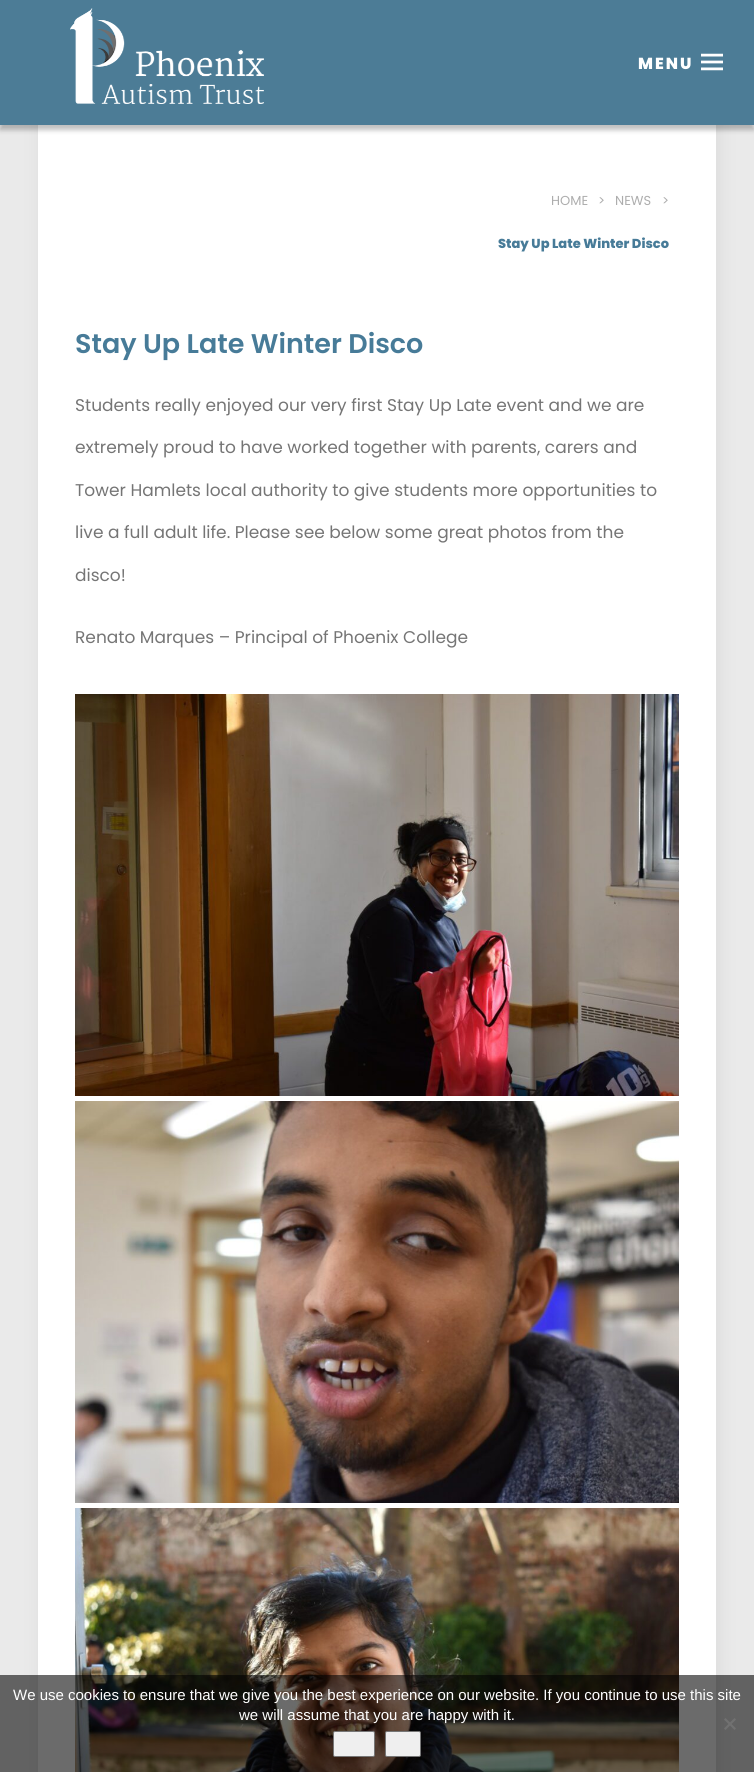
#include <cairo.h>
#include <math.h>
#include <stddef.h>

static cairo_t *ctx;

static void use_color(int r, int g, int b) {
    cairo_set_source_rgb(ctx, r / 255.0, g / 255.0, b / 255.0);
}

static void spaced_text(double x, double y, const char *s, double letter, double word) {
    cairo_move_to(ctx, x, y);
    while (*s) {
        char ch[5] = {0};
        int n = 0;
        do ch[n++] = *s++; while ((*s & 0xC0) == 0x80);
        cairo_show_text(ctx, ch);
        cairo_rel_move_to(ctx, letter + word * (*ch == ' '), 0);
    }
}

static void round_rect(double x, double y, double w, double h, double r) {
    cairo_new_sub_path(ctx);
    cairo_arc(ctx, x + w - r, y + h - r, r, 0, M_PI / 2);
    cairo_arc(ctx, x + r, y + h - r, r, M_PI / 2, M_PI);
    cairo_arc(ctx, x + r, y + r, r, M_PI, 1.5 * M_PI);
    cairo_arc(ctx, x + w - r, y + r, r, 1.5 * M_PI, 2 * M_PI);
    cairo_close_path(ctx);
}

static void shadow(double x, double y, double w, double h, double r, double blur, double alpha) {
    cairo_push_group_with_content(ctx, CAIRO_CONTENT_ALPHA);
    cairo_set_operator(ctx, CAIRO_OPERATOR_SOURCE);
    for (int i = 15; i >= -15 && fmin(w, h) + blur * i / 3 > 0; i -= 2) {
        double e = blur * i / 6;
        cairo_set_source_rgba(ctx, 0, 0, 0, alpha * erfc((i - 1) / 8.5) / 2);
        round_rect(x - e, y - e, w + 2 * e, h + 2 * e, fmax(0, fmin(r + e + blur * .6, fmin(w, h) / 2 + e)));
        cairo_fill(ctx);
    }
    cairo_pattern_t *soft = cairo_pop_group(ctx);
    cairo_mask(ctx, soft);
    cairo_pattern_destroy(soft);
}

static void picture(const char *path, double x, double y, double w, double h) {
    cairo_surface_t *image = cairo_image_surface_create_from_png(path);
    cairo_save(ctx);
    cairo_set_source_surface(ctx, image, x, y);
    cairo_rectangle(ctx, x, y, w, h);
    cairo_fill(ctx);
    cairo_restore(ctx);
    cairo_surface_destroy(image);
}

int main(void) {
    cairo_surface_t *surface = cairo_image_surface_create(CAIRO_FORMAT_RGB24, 754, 1772);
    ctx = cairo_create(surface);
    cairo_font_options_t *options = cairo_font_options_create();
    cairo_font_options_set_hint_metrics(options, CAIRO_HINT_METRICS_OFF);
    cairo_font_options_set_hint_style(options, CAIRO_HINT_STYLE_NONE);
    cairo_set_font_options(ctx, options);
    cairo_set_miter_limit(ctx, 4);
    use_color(234, 234, 234);
    cairo_paint(ctx);
    use_color(114, 114, 114);
    shadow(38, 120, 684, 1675, 0, 7.5, 0.1);
    use_color(255, 255, 255);
    cairo_rectangle(ctx, 38, 125, 678, 1647);
    cairo_fill(ctx);
    use_color(0, 0, 0);
    shadow(0, 5, 754, 125, 0, 2.5, 0.25);
    use_color(76, 124, 150);
    cairo_rectangle(ctx, 0, 0, 754, 125);
    cairo_fill(ctx);
    picture("img1.png", 70, 8, 194, 96);
    cairo_select_font_face(ctx, "Poppins ExtraBold", CAIRO_FONT_SLANT_NORMAL, CAIRO_FONT_WEIGHT_NORMAL);
    cairo_set_font_size(ctx, 16);
    use_color(255, 255, 255);
    spaced_text(638, 69, "MENU", 2, 0);
    picture("img2.png", 701, 53, 22, 18);
    cairo_select_font_face(ctx, "Poppins", CAIRO_FONT_SLANT_NORMAL, CAIRO_FONT_WEIGHT_NORMAL);
    cairo_set_font_size(ctx, 13);
    use_color(173, 173, 173);
    cairo_move_to(ctx, 551, 205);
    cairo_show_text(ctx, "HOME");
    cairo_move_to(ctx, 598, 205);
    cairo_show_text(ctx, ">");
    cairo_move_to(ctx, 615, 205);
    cairo_show_text(ctx, "NEWS");
    cairo_move_to(ctx, 662, 205);
    cairo_show_text(ctx, ">");
    cairo_select_font_face(ctx, "Poppins ExtraBold", CAIRO_FONT_SLANT_NORMAL, CAIRO_FONT_WEIGHT_NORMAL);
    use_color(71, 123, 152);
    cairo_move_to(ctx, 498, 248);
    cairo_show_text(ctx, "Stay Up Late Winter Disco");
    cairo_select_font_face(ctx, "Poppins SemiBold", CAIRO_FONT_SLANT_NORMAL, CAIRO_FONT_WEIGHT_NORMAL);
    cairo_set_font_size(ctx, 27);
    cairo_move_to(ctx, 75, 353);
    cairo_show_text(ctx, "Stay Up Late Winter Disco");
    cairo_select_font_face(ctx, "Poppins", CAIRO_FONT_SLANT_NORMAL, CAIRO_FONT_WEIGHT_NORMAL);
    cairo_set_font_size(ctx, 17);
    use_color(117, 117, 117);
    cairo_move_to(ctx, 75, 411);
    cairo_show_text(ctx, "Students really enjoyed our very first Stay Up Late event and we are");
    cairo_move_to(ctx, 75, 453);
    cairo_show_text(ctx, "extremely proud to have worked together with parents, carers and");
    cairo_move_to(ctx, 75, 496);
    cairo_show_text(ctx, "Tower Hamlets local authority to give students more opportunities to");
    cairo_move_to(ctx, 75, 538);
    cairo_show_text(ctx, "live a full adult life. Please see below some great photos from the");
    cairo_move_to(ctx, 75, 581);
    cairo_show_text(ctx, "disco!");
    cairo_move_to(ctx, 75, 643);
    cairo_show_text(ctx, "Renato Marques – Principal of Phoenix College");
    picture("img3.png", 75, 694, 604, 402);
    picture("img4.png", 75, 1101, 604, 402);
    picture("img5.png", 75, 1508, 604, 264);
    cairo_set_source_rgba(ctx, 0, 0, 0, 0.58);
    cairo_rectangle(ctx, 0, 1675, 754, 97);
    cairo_fill(ctx);
    cairo_select_font_face(ctx, "Liberation Sans", CAIRO_FONT_SLANT_NORMAL, CAIRO_FONT_WEIGHT_NORMAL);
    cairo_set_font_size(ctx, 15);
    use_color(255, 255, 255);
    cairo_move_to(ctx, 13, 1700);
    cairo_show_text(ctx, "We use cookies to ensure that we give you the best experience on our website. If you continue to use this site");
    cairo_move_to(ctx, 239, 1720);
    cairo_show_text(ctx, "we will assume that you are happy with it.");
    use_color(113, 113, 113);
    cairo_new_path(ctx);
    cairo_move_to(ctx, 734.5, 1718);
    cairo_line_to(ctx, 736, 1719.5);
    cairo_line_to(ctx, 725.5, 1730);
    cairo_line_to(ctx, 724, 1728.5);
    cairo_close_path(ctx);
    cairo_fill(ctx);
    cairo_new_path(ctx);
    cairo_move_to(ctx, 724, 1719.5);
    cairo_line_to(ctx, 725.5, 1718);
    cairo_line_to(ctx, 736, 1728.5);
    cairo_line_to(ctx, 734.5, 1730);
    cairo_close_path(ctx);
    cairo_fill(ctx);
    use_color(239, 239, 239);
    round_rect(333.5, 1731.5, 41, 25, 1.5);
    cairo_fill_preserve(ctx);
    use_color(118, 118, 118);
    cairo_set_line_width(ctx, 1);
    cairo_stroke(ctx);
    use_color(239, 239, 239);
    round_rect(385.5, 1731.5, 35, 25, 1.5);
    cairo_fill_preserve(ctx);
    use_color(118, 118, 118);
    cairo_stroke(ctx);
    cairo_surface_write_to_png(surface, "result.png");
    cairo_font_options_destroy(options);
    cairo_destroy(ctx);
    cairo_surface_destroy(surface);
    return 0;
}
